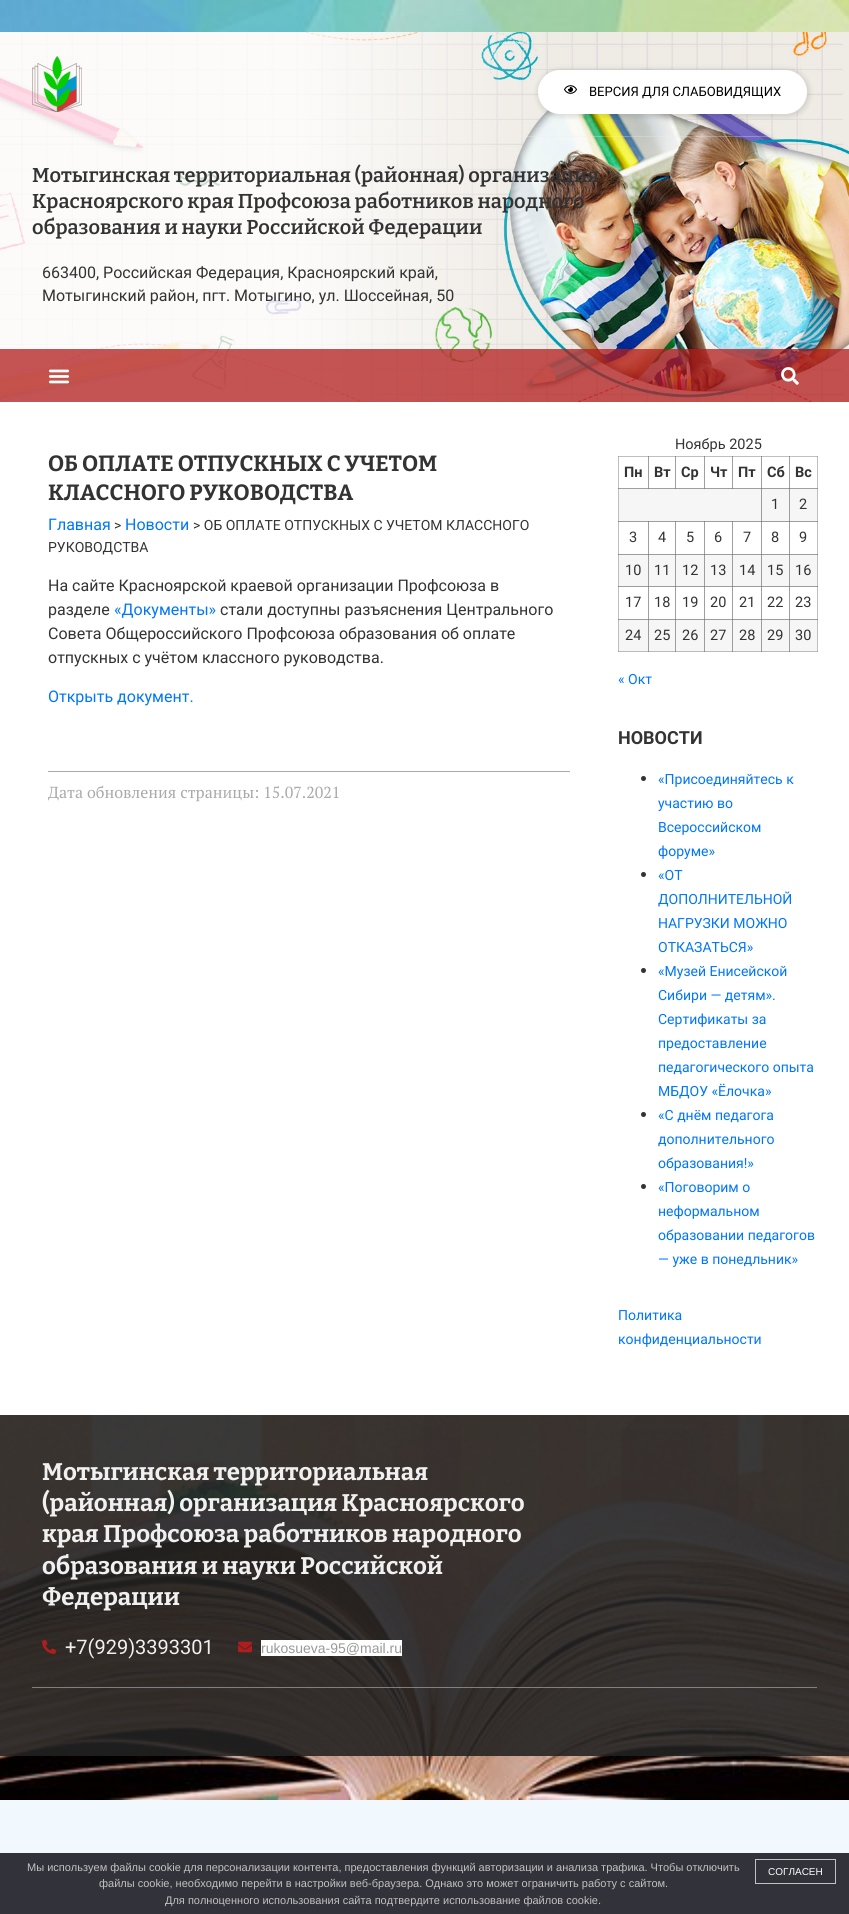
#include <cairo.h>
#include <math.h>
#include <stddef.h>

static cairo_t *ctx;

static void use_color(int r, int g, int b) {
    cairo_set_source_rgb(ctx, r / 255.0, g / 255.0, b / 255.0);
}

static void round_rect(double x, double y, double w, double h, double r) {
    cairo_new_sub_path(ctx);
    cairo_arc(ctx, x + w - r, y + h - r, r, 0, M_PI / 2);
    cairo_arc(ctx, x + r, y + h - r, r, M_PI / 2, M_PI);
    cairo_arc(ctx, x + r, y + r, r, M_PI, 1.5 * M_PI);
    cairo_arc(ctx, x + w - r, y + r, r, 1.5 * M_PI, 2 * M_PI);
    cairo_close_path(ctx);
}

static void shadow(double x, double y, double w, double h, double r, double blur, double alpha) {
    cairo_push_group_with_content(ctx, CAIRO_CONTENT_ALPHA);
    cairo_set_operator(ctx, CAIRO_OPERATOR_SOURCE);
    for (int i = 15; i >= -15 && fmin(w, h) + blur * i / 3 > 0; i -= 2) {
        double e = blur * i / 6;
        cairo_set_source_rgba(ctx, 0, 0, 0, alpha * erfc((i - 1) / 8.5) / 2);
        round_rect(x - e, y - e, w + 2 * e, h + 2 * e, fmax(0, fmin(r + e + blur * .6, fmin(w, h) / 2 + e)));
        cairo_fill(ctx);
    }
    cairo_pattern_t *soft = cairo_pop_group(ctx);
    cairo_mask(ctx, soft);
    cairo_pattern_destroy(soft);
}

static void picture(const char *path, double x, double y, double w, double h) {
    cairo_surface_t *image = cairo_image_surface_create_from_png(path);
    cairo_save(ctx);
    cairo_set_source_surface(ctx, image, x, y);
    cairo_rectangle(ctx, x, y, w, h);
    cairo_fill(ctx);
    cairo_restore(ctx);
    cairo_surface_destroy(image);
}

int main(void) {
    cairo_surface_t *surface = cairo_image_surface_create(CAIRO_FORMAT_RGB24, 849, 1914);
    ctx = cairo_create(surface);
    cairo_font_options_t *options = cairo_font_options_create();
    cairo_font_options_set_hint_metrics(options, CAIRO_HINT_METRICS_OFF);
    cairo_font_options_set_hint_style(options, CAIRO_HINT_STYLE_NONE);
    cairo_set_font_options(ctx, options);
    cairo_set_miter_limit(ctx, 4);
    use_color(241, 249, 255);
    cairo_paint(ctx);
    picture("img1.png", 0, 0, 849, 1800);
    picture("img2.png", 0, 32, 849, 370);
    cairo_set_source_rgba(ctx, 0.933, 0.933, 0.933, 0.29);
    cairo_rectangle(ctx, 0, 136, 849, 1);
    cairo_fill(ctx);
    picture("img3.png", 32, 56, 50, 56);
    use_color(0, 0, 0);
    shadow(537, 69, 273, 48, 24, 2.5, 0.11);
    use_color(255, 255, 255);
    round_rect(538, 70, 269, 44, 22);
    cairo_fill(ctx);
    picture("img4.png", 564, 85, 13, 9);
    cairo_select_font_face(ctx, "Roboto", CAIRO_FONT_SLANT_NORMAL, CAIRO_FONT_WEIGHT_NORMAL);
    cairo_set_font_size(ctx, 13);
    use_color(0, 0, 0);
    cairo_move_to(ctx, 589, 96);
    cairo_show_text(ctx, "ВЕРСИЯ ДЛЯ СЛАБОВИДЯЩИХ");
    cairo_select_font_face(ctx, "Bitter SemiBold", CAIRO_FONT_SLANT_NORMAL, CAIRO_FONT_WEIGHT_NORMAL);
    cairo_set_font_size(ctx, 20);
    use_color(51, 51, 51);
    cairo_move_to(ctx, 32, 182);
    cairo_show_text(ctx, "Мотыгинская территориальная (районная) организация");
    cairo_move_to(ctx, 32, 208);
    cairo_show_text(ctx, "Красноярского края Профсоюза работников народного");
    cairo_move_to(ctx, 32, 234);
    cairo_show_text(ctx, "образования и науки Российской Федерации");
    cairo_select_font_face(ctx, "Roboto", CAIRO_FONT_SLANT_NORMAL, CAIRO_FONT_WEIGHT_NORMAL);
    cairo_set_font_size(ctx, 16);
    cairo_move_to(ctx, 42, 278);
    cairo_show_text(ctx, "663400, Российская Федерация, Красноярский край,");
    cairo_move_to(ctx, 42, 301);
    cairo_show_text(ctx, "Мотыгинский район, пгт. Мотыгино, ул. Шоссейная, 50");
    cairo_set_source_rgba(ctx, 0.694, 0.114, 0.114, 0.75);
    cairo_rectangle(ctx, 0, 349, 849, 53);
    cairo_fill(ctx);
    picture("img5.png", 48, 369, 22, 15);
    picture("img6.png", 781, 367, 18, 18);
    use_color(255, 255, 255);
    cairo_rectangle(ctx, 0, 402, 849, 1013);
    cairo_fill(ctx);
    cairo_select_font_face(ctx, "Bitter", CAIRO_FONT_SLANT_NORMAL, CAIRO_FONT_WEIGHT_BOLD);
    cairo_set_font_size(ctx, 22);
    use_color(51, 51, 51);
    cairo_move_to(ctx, 48, 471);
    cairo_show_text(ctx, "ОБ ОПЛАТЕ ОТПУСКНЫХ С УЧЕТОМ");
    cairo_move_to(ctx, 48, 500);
    cairo_show_text(ctx, "КЛАССНОГО РУКОВОДСТВА");
    cairo_select_font_face(ctx, "Roboto", CAIRO_FONT_SLANT_NORMAL, CAIRO_FONT_WEIGHT_NORMAL);
    cairo_set_font_size(ctx, 16);
    use_color(0, 118, 248);
    cairo_move_to(ctx, 48, 530);
    cairo_show_text(ctx, "Главная");
    cairo_set_font_size(ctx, 14);
    use_color(51, 51, 51);
    cairo_move_to(ctx, 114, 530);
    cairo_show_text(ctx, ">");
    cairo_set_font_size(ctx, 16);
    use_color(0, 118, 248);
    cairo_move_to(ctx, 125, 530);
    cairo_show_text(ctx, "Новости");
    cairo_set_font_size(ctx, 14);
    use_color(51, 51, 51);
    cairo_move_to(ctx, 193, 530);
    cairo_show_text(ctx, "> ОБ ОПЛАТЕ ОТПУСКНЫХ С УЧЕТОМ КЛАССНОГО");
    cairo_move_to(ctx, 48, 552);
    cairo_show_text(ctx, "РУКОВОДСТВА");
    cairo_set_font_size(ctx, 16);
    cairo_move_to(ctx, 48, 591);
    cairo_show_text(ctx, "На сайте Красноярской краевой организации Профсоюза в");
    cairo_move_to(ctx, 48, 615);
    cairo_show_text(ctx, "разделе");
    use_color(0, 118, 248);
    cairo_move_to(ctx, 114, 615);
    cairo_show_text(ctx, "«Документы»");
    use_color(51, 51, 51);
    cairo_move_to(ctx, 220, 615);
    cairo_show_text(ctx, "стали доступны разъяснения Центрального");
    cairo_move_to(ctx, 48, 639);
    cairo_show_text(ctx, "Совета Общероссийского Профсоюза образования об оплате");
    cairo_move_to(ctx, 48, 663);
    cairo_show_text(ctx, "отпускных с учётом классного руководства.");
    use_color(0, 118, 248);
    cairo_move_to(ctx, 48, 702);
    cairo_show_text(ctx, "Открыть документ.");
    use_color(170, 170, 170);
    cairo_rectangle(ctx, 48, 771, 522, 1);
    cairo_fill(ctx);
    cairo_select_font_face(ctx, "PT Serif", CAIRO_FONT_SLANT_NORMAL, CAIRO_FONT_WEIGHT_NORMAL);
    cairo_move_to(ctx, 48, 798);
    cairo_show_text(ctx, "Дата обновления страницы: 15.07.2021");
    cairo_select_font_face(ctx, "Roboto", CAIRO_FONT_SLANT_NORMAL, CAIRO_FONT_WEIGHT_NORMAL);
    cairo_set_font_size(ctx, 14.5);
    use_color(51, 51, 51);
    cairo_move_to(ctx, 675, 449);
    cairo_show_text(ctx, "Ноябрь 2025");
    use_color(192, 192, 192);
    cairo_rectangle(ctx, 789, 456, 29, 1);
    cairo_fill(ctx);
    cairo_rectangle(ctx, 789, 488, 29, 1);
    cairo_fill(ctx);
    use_color(246, 246, 246);
    cairo_rectangle(ctx, 619, 489, 198, 33);
    cairo_fill(ctx);
    cairo_set_source_rgba(ctx, 0.502, 0.502, 0.502, 0.5);
    cairo_rectangle(ctx, 789, 521, 29, 1);
    cairo_fill(ctx);
    use_color(246, 246, 246);
    cairo_rectangle(ctx, 619, 554, 198, 33);
    cairo_fill(ctx);
    cairo_set_source_rgba(ctx, 0.502, 0.502, 0.502, 0.5);
    cairo_rectangle(ctx, 789, 554, 29, 1);
    cairo_fill(ctx);
    cairo_rectangle(ctx, 789, 586, 29, 1);
    cairo_fill(ctx);
    use_color(246, 246, 246);
    cairo_rectangle(ctx, 619, 619, 198, 33);
    cairo_fill(ctx);
    cairo_set_source_rgba(ctx, 0.502, 0.502, 0.502, 0.5);
    cairo_rectangle(ctx, 789, 619, 29, 1);
    cairo_fill(ctx);
    cairo_rectangle(ctx, 817, 619, 1, 33);
    cairo_fill(ctx);
    cairo_rectangle(ctx, 817, 586, 1, 34);
    cairo_fill(ctx);
    cairo_rectangle(ctx, 817, 554, 1, 33);
    cairo_fill(ctx);
    cairo_rectangle(ctx, 817, 521, 1, 34);
    cairo_fill(ctx);
    cairo_rectangle(ctx, 817, 488, 1, 34);
    cairo_fill(ctx);
    cairo_rectangle(ctx, 817, 456, 1, 33);
    cairo_fill(ctx);
    cairo_rectangle(ctx, 789, 651, 29, 1);
    cairo_fill(ctx);
    cairo_rectangle(ctx, 789, 619, 1, 33);
    cairo_fill(ctx);
    cairo_rectangle(ctx, 761, 619, 29, 1);
    cairo_fill(ctx);
    cairo_rectangle(ctx, 789, 619, 1, 33);
    cairo_fill(ctx);
    cairo_rectangle(ctx, 789, 619, 29, 1);
    cairo_fill(ctx);
    cairo_rectangle(ctx, 789, 586, 1, 34);
    cairo_fill(ctx);
    cairo_rectangle(ctx, 761, 586, 29, 1);
    cairo_fill(ctx);
    cairo_rectangle(ctx, 789, 586, 1, 34);
    cairo_fill(ctx);
    cairo_rectangle(ctx, 789, 586, 29, 1);
    cairo_fill(ctx);
    cairo_rectangle(ctx, 789, 554, 1, 33);
    cairo_fill(ctx);
    cairo_rectangle(ctx, 761, 554, 29, 1);
    cairo_fill(ctx);
    cairo_rectangle(ctx, 789, 554, 1, 33);
    cairo_fill(ctx);
    cairo_rectangle(ctx, 789, 554, 29, 1);
    cairo_fill(ctx);
    cairo_rectangle(ctx, 789, 521, 1, 34);
    cairo_fill(ctx);
    cairo_rectangle(ctx, 761, 521, 29, 1);
    cairo_fill(ctx);
    cairo_rectangle(ctx, 789, 521, 1, 34);
    cairo_fill(ctx);
    cairo_rectangle(ctx, 789, 521, 29, 1);
    cairo_fill(ctx);
    cairo_rectangle(ctx, 789, 488, 1, 34);
    cairo_fill(ctx);
    cairo_rectangle(ctx, 761, 488, 29, 1);
    cairo_fill(ctx);
    cairo_rectangle(ctx, 789, 488, 1, 34);
    cairo_fill(ctx);
    cairo_rectangle(ctx, 789, 488, 29, 1);
    cairo_fill(ctx);
    cairo_rectangle(ctx, 789, 456, 1, 33);
    cairo_fill(ctx);
    cairo_rectangle(ctx, 761, 456, 29, 1);
    cairo_fill(ctx);
    cairo_rectangle(ctx, 789, 456, 1, 33);
    cairo_fill(ctx);
    cairo_rectangle(ctx, 761, 651, 29, 1);
    cairo_fill(ctx);
    cairo_rectangle(ctx, 761, 619, 1, 33);
    cairo_fill(ctx);
    cairo_rectangle(ctx, 732, 619, 30, 1);
    cairo_fill(ctx);
    cairo_rectangle(ctx, 761, 619, 1, 33);
    cairo_fill(ctx);
    cairo_rectangle(ctx, 761, 619, 29, 1);
    cairo_fill(ctx);
    cairo_rectangle(ctx, 761, 586, 1, 34);
    cairo_fill(ctx);
    cairo_rectangle(ctx, 732, 586, 30, 1);
    cairo_fill(ctx);
    cairo_rectangle(ctx, 761, 586, 1, 34);
    cairo_fill(ctx);
    cairo_rectangle(ctx, 761, 586, 29, 1);
    cairo_fill(ctx);
    cairo_rectangle(ctx, 761, 554, 1, 33);
    cairo_fill(ctx);
    cairo_rectangle(ctx, 732, 554, 30, 1);
    cairo_fill(ctx);
    cairo_rectangle(ctx, 761, 554, 1, 33);
    cairo_fill(ctx);
    cairo_rectangle(ctx, 761, 554, 29, 1);
    cairo_fill(ctx);
    cairo_rectangle(ctx, 761, 521, 1, 34);
    cairo_fill(ctx);
    cairo_rectangle(ctx, 732, 521, 30, 1);
    cairo_fill(ctx);
    cairo_rectangle(ctx, 761, 521, 1, 34);
    cairo_fill(ctx);
    cairo_rectangle(ctx, 761, 521, 29, 1);
    cairo_fill(ctx);
    cairo_rectangle(ctx, 761, 488, 1, 34);
    cairo_fill(ctx);
    cairo_rectangle(ctx, 618, 488, 144, 1);
    cairo_fill(ctx);
    cairo_rectangle(ctx, 761, 488, 1, 34);
    cairo_fill(ctx);
    cairo_rectangle(ctx, 761, 488, 29, 1);
    cairo_fill(ctx);
    cairo_rectangle(ctx, 761, 456, 1, 33);
    cairo_fill(ctx);
    cairo_rectangle(ctx, 732, 456, 30, 1);
    cairo_fill(ctx);
    cairo_rectangle(ctx, 761, 456, 1, 33);
    cairo_fill(ctx);
    cairo_rectangle(ctx, 732, 488, 30, 1);
    cairo_fill(ctx);
    cairo_rectangle(ctx, 732, 456, 1, 33);
    cairo_fill(ctx);
    cairo_rectangle(ctx, 704, 456, 29, 1);
    cairo_fill(ctx);
    cairo_rectangle(ctx, 732, 456, 1, 33);
    cairo_fill(ctx);
    cairo_rectangle(ctx, 704, 488, 29, 1);
    cairo_fill(ctx);
    cairo_rectangle(ctx, 704, 456, 1, 33);
    cairo_fill(ctx);
    cairo_rectangle(ctx, 675, 456, 30, 1);
    cairo_fill(ctx);
    cairo_rectangle(ctx, 704, 456, 1, 33);
    cairo_fill(ctx);
    cairo_rectangle(ctx, 675, 488, 30, 1);
    cairo_fill(ctx);
    cairo_rectangle(ctx, 675, 456, 1, 33);
    cairo_fill(ctx);
    cairo_rectangle(ctx, 648, 456, 28, 1);
    cairo_fill(ctx);
    cairo_rectangle(ctx, 675, 456, 1, 33);
    cairo_fill(ctx);
    cairo_rectangle(ctx, 648, 488, 28, 1);
    cairo_fill(ctx);
    cairo_rectangle(ctx, 648, 456, 1, 33);
    cairo_fill(ctx);
    cairo_rectangle(ctx, 618, 456, 31, 1);
    cairo_fill(ctx);
    cairo_rectangle(ctx, 648, 456, 1, 33);
    cairo_fill(ctx);
    cairo_rectangle(ctx, 732, 651, 30, 1);
    cairo_fill(ctx);
    cairo_rectangle(ctx, 732, 619, 1, 33);
    cairo_fill(ctx);
    cairo_rectangle(ctx, 704, 619, 29, 1);
    cairo_fill(ctx);
    cairo_rectangle(ctx, 732, 619, 1, 33);
    cairo_fill(ctx);
    cairo_rectangle(ctx, 732, 619, 30, 1);
    cairo_fill(ctx);
    cairo_rectangle(ctx, 732, 586, 1, 34);
    cairo_fill(ctx);
    cairo_rectangle(ctx, 704, 586, 29, 1);
    cairo_fill(ctx);
    cairo_rectangle(ctx, 732, 586, 1, 34);
    cairo_fill(ctx);
    cairo_rectangle(ctx, 732, 586, 30, 1);
    cairo_fill(ctx);
    cairo_rectangle(ctx, 732, 554, 1, 33);
    cairo_fill(ctx);
    cairo_rectangle(ctx, 704, 554, 29, 1);
    cairo_fill(ctx);
    cairo_rectangle(ctx, 732, 554, 1, 33);
    cairo_fill(ctx);
    cairo_rectangle(ctx, 732, 554, 30, 1);
    cairo_fill(ctx);
    cairo_rectangle(ctx, 732, 521, 1, 34);
    cairo_fill(ctx);
    cairo_rectangle(ctx, 704, 521, 29, 1);
    cairo_fill(ctx);
    cairo_rectangle(ctx, 732, 521, 1, 34);
    cairo_fill(ctx);
    cairo_rectangle(ctx, 704, 651, 29, 1);
    cairo_fill(ctx);
    cairo_rectangle(ctx, 704, 619, 1, 33);
    cairo_fill(ctx);
    cairo_rectangle(ctx, 675, 619, 30, 1);
    cairo_fill(ctx);
    cairo_rectangle(ctx, 704, 619, 1, 33);
    cairo_fill(ctx);
    cairo_rectangle(ctx, 704, 619, 29, 1);
    cairo_fill(ctx);
    cairo_rectangle(ctx, 704, 586, 1, 34);
    cairo_fill(ctx);
    cairo_rectangle(ctx, 675, 586, 30, 1);
    cairo_fill(ctx);
    cairo_rectangle(ctx, 704, 586, 1, 34);
    cairo_fill(ctx);
    cairo_rectangle(ctx, 704, 586, 29, 1);
    cairo_fill(ctx);
    cairo_rectangle(ctx, 704, 554, 1, 33);
    cairo_fill(ctx);
    cairo_rectangle(ctx, 675, 554, 30, 1);
    cairo_fill(ctx);
    cairo_rectangle(ctx, 704, 554, 1, 33);
    cairo_fill(ctx);
    cairo_rectangle(ctx, 704, 554, 29, 1);
    cairo_fill(ctx);
    cairo_rectangle(ctx, 704, 521, 1, 34);
    cairo_fill(ctx);
    cairo_rectangle(ctx, 675, 521, 30, 1);
    cairo_fill(ctx);
    cairo_rectangle(ctx, 704, 521, 1, 34);
    cairo_fill(ctx);
    cairo_rectangle(ctx, 675, 651, 30, 1);
    cairo_fill(ctx);
    cairo_rectangle(ctx, 675, 619, 1, 33);
    cairo_fill(ctx);
    cairo_rectangle(ctx, 648, 619, 28, 1);
    cairo_fill(ctx);
    cairo_rectangle(ctx, 675, 619, 1, 33);
    cairo_fill(ctx);
    cairo_rectangle(ctx, 675, 619, 30, 1);
    cairo_fill(ctx);
    cairo_rectangle(ctx, 675, 586, 1, 34);
    cairo_fill(ctx);
    cairo_rectangle(ctx, 648, 586, 28, 1);
    cairo_fill(ctx);
    cairo_rectangle(ctx, 675, 586, 1, 34);
    cairo_fill(ctx);
    cairo_rectangle(ctx, 675, 586, 30, 1);
    cairo_fill(ctx);
    cairo_rectangle(ctx, 675, 554, 1, 33);
    cairo_fill(ctx);
    cairo_rectangle(ctx, 648, 554, 28, 1);
    cairo_fill(ctx);
    cairo_rectangle(ctx, 675, 554, 1, 33);
    cairo_fill(ctx);
    cairo_rectangle(ctx, 675, 554, 30, 1);
    cairo_fill(ctx);
    cairo_rectangle(ctx, 675, 521, 1, 34);
    cairo_fill(ctx);
    cairo_rectangle(ctx, 648, 521, 28, 1);
    cairo_fill(ctx);
    cairo_rectangle(ctx, 675, 521, 1, 34);
    cairo_fill(ctx);
    cairo_rectangle(ctx, 648, 651, 28, 1);
    cairo_fill(ctx);
    cairo_rectangle(ctx, 648, 619, 1, 33);
    cairo_fill(ctx);
    cairo_rectangle(ctx, 618, 619, 31, 1);
    cairo_fill(ctx);
    cairo_rectangle(ctx, 648, 619, 1, 33);
    cairo_fill(ctx);
    cairo_rectangle(ctx, 648, 619, 28, 1);
    cairo_fill(ctx);
    cairo_rectangle(ctx, 648, 586, 1, 34);
    cairo_fill(ctx);
    cairo_rectangle(ctx, 618, 586, 31, 1);
    cairo_fill(ctx);
    cairo_rectangle(ctx, 648, 586, 1, 34);
    cairo_fill(ctx);
    cairo_rectangle(ctx, 648, 586, 28, 1);
    cairo_fill(ctx);
    cairo_rectangle(ctx, 648, 554, 1, 33);
    cairo_fill(ctx);
    cairo_rectangle(ctx, 618, 554, 31, 1);
    cairo_fill(ctx);
    cairo_rectangle(ctx, 648, 554, 1, 33);
    cairo_fill(ctx);
    cairo_rectangle(ctx, 648, 554, 28, 1);
    cairo_fill(ctx);
    cairo_rectangle(ctx, 648, 521, 1, 34);
    cairo_fill(ctx);
    cairo_rectangle(ctx, 618, 521, 31, 1);
    cairo_fill(ctx);
    cairo_rectangle(ctx, 648, 521, 1, 34);
    cairo_fill(ctx);
    cairo_rectangle(ctx, 618, 651, 31, 1);
    cairo_fill(ctx);
    cairo_rectangle(ctx, 618, 619, 1, 33);
    cairo_fill(ctx);
    cairo_rectangle(ctx, 618, 619, 31, 1);
    cairo_fill(ctx);
    cairo_rectangle(ctx, 618, 586, 1, 34);
    cairo_fill(ctx);
    cairo_rectangle(ctx, 618, 586, 31, 1);
    cairo_fill(ctx);
    cairo_rectangle(ctx, 618, 554, 1, 33);
    cairo_fill(ctx);
    cairo_rectangle(ctx, 618, 554, 31, 1);
    cairo_fill(ctx);
    cairo_rectangle(ctx, 618, 521, 1, 34);
    cairo_fill(ctx);
    cairo_rectangle(ctx, 618, 521, 144, 1);
    cairo_fill(ctx);
    cairo_rectangle(ctx, 618, 488, 1, 34);
    cairo_fill(ctx);
    cairo_rectangle(ctx, 618, 488, 31, 1);
    cairo_fill(ctx);
    cairo_rectangle(ctx, 618, 456, 1, 33);
    cairo_fill(ctx);
    cairo_select_font_face(ctx, "Roboto", CAIRO_FONT_SLANT_NORMAL, CAIRO_FONT_WEIGHT_BOLD);
    use_color(51, 51, 51);
    cairo_move_to(ctx, 624, 477);
    cairo_show_text(ctx, "Пн");
    cairo_move_to(ctx, 654, 477);
    cairo_show_text(ctx, "Вт");
    cairo_move_to(ctx, 681, 477);
    cairo_show_text(ctx, "Ср");
    cairo_move_to(ctx, 710, 477);
    cairo_show_text(ctx, "Чт");
    cairo_move_to(ctx, 738, 477);
    cairo_show_text(ctx, "Пт");
    cairo_move_to(ctx, 767, 477);
    cairo_show_text(ctx, "Сб");
    cairo_move_to(ctx, 795, 477);
    cairo_show_text(ctx, "Вс");
    cairo_select_font_face(ctx, "Roboto", CAIRO_FONT_SLANT_NORMAL, CAIRO_FONT_WEIGHT_NORMAL);
    cairo_move_to(ctx, 771, 509);
    cairo_show_text(ctx, "1");
    cairo_move_to(ctx, 799, 509);
    cairo_show_text(ctx, "2");
    cairo_move_to(ctx, 629, 542);
    cairo_show_text(ctx, "3");
    cairo_move_to(ctx, 658, 542);
    cairo_show_text(ctx, "4");
    cairo_move_to(ctx, 686, 542);
    cairo_show_text(ctx, "5");
    cairo_move_to(ctx, 714, 542);
    cairo_show_text(ctx, "6");
    cairo_move_to(ctx, 743, 542);
    cairo_show_text(ctx, "7");
    cairo_move_to(ctx, 771, 542);
    cairo_show_text(ctx, "8");
    cairo_move_to(ctx, 799, 542);
    cairo_show_text(ctx, "9");
    cairo_move_to(ctx, 625, 575);
    cairo_show_text(ctx, "10");
    cairo_move_to(ctx, 654, 575);
    cairo_show_text(ctx, "11");
    cairo_move_to(ctx, 682, 575);
    cairo_show_text(ctx, "12");
    cairo_move_to(ctx, 710, 575);
    cairo_show_text(ctx, "13");
    cairo_move_to(ctx, 739, 575);
    cairo_show_text(ctx, "14");
    cairo_move_to(ctx, 767, 575);
    cairo_show_text(ctx, "15");
    cairo_move_to(ctx, 795, 575);
    cairo_show_text(ctx, "16");
    cairo_move_to(ctx, 625, 607);
    cairo_show_text(ctx, "17");
    cairo_move_to(ctx, 654, 607);
    cairo_show_text(ctx, "18");
    cairo_move_to(ctx, 682, 607);
    cairo_show_text(ctx, "19");
    cairo_move_to(ctx, 710, 607);
    cairo_show_text(ctx, "20");
    cairo_move_to(ctx, 739, 607);
    cairo_show_text(ctx, "21");
    cairo_move_to(ctx, 767, 607);
    cairo_show_text(ctx, "22");
    cairo_move_to(ctx, 795, 607);
    cairo_show_text(ctx, "23");
    cairo_move_to(ctx, 625, 640);
    cairo_show_text(ctx, "24");
    cairo_move_to(ctx, 654, 640);
    cairo_show_text(ctx, "25");
    cairo_move_to(ctx, 682, 640);
    cairo_show_text(ctx, "26");
    cairo_move_to(ctx, 710, 640);
    cairo_show_text(ctx, "27");
    cairo_move_to(ctx, 739, 640);
    cairo_show_text(ctx, "28");
    cairo_move_to(ctx, 767, 640);
    cairo_show_text(ctx, "29");
    cairo_move_to(ctx, 795, 640);
    cairo_show_text(ctx, "30");
    cairo_set_font_size(ctx, 14);
    use_color(0, 118, 248);
    cairo_move_to(ctx, 618, 684);
    cairo_show_text(ctx, "« Окт");
    cairo_select_font_face(ctx, "Roboto", CAIRO_FONT_SLANT_NORMAL, CAIRO_FONT_WEIGHT_BOLD);
    cairo_set_font_size(ctx, 18);
    use_color(51, 51, 51);
    cairo_move_to(ctx, 618, 744);
    cairo_show_text(ctx, "НОВОСТИ");
    cairo_new_path(ctx);
    cairo_arc(ctx, 643.5, 778.5, 2.5, 0, 2 * M_PI);
    cairo_fill(ctx);
    cairo_select_font_face(ctx, "Roboto", CAIRO_FONT_SLANT_NORMAL, CAIRO_FONT_WEIGHT_NORMAL);
    cairo_set_font_size(ctx, 14);
    use_color(0, 118, 248);
    cairo_move_to(ctx, 658, 784);
    cairo_show_text(ctx, "«Присоединяйтесь к");
    cairo_move_to(ctx, 658, 808);
    cairo_show_text(ctx, "участию во");
    cairo_move_to(ctx, 658, 832);
    cairo_show_text(ctx, "Всероссийском");
    cairo_move_to(ctx, 658, 856);
    cairo_show_text(ctx, "форуме»");
    use_color(51, 51, 51);
    cairo_new_path(ctx);
    cairo_arc(ctx, 643.5, 874.5, 2.5, 0, 2 * M_PI);
    cairo_fill(ctx);
    use_color(0, 118, 248);
    cairo_move_to(ctx, 658, 880);
    cairo_show_text(ctx, "«ОТ");
    cairo_move_to(ctx, 658, 904);
    cairo_show_text(ctx, "ДОПОЛНИТЕЛЬНОЙ");
    cairo_move_to(ctx, 658, 928);
    cairo_show_text(ctx, "НАГРУЗКИ МОЖНО");
    cairo_move_to(ctx, 658, 952);
    cairo_show_text(ctx, "ОТКАЗАТЬСЯ»");
    use_color(51, 51, 51);
    cairo_new_path(ctx);
    cairo_arc(ctx, 643.5, 970.5, 2.5, 0, 2 * M_PI);
    cairo_fill(ctx);
    use_color(0, 118, 248);
    cairo_move_to(ctx, 658, 976);
    cairo_show_text(ctx, "«Музей Енисейской");
    cairo_move_to(ctx, 658, 1000);
    cairo_show_text(ctx, "Сибири — детям».");
    cairo_move_to(ctx, 658, 1024);
    cairo_show_text(ctx, "Сертификаты за");
    cairo_move_to(ctx, 658, 1048);
    cairo_show_text(ctx, "предоставление");
    cairo_move_to(ctx, 658, 1072);
    cairo_show_text(ctx, "педагогического опыта");
    cairo_move_to(ctx, 658, 1096);
    cairo_show_text(ctx, "МБДОУ «Ёлочка»");
    use_color(51, 51, 51);
    cairo_new_path(ctx);
    cairo_arc(ctx, 643.5, 1114.5, 2.5, 0, 2 * M_PI);
    cairo_fill(ctx);
    use_color(0, 118, 248);
    cairo_move_to(ctx, 658, 1120);
    cairo_show_text(ctx, "«С днём педагога");
    cairo_move_to(ctx, 658, 1144);
    cairo_show_text(ctx, "дополнительного");
    cairo_move_to(ctx, 658, 1168);
    cairo_show_text(ctx, "образования!»");
    use_color(51, 51, 51);
    cairo_new_path(ctx);
    cairo_arc(ctx, 643.5, 1186.5, 2.5, 0, 2 * M_PI);
    cairo_fill(ctx);
    use_color(0, 118, 248);
    cairo_move_to(ctx, 658, 1192);
    cairo_show_text(ctx, "«Поговорим о");
    cairo_move_to(ctx, 658, 1216);
    cairo_show_text(ctx, "неформальном");
    cairo_move_to(ctx, 658, 1240);
    cairo_show_text(ctx, "образовании педагогов");
    cairo_move_to(ctx, 658, 1264);
    cairo_show_text(ctx, "— уже в понедльник»");
    cairo_move_to(ctx, 618, 1320);
    cairo_show_text(ctx, "Политика");
    cairo_move_to(ctx, 618, 1344);
    cairo_show_text(ctx, "конфиденциальности");
    cairo_set_source_rgba(ctx, 0.133, 0.133, 0.133, 0.89);
    cairo_rectangle(ctx, 0, 1415, 849, 341);
    cairo_fill(ctx);
    cairo_select_font_face(ctx, "Bitter", CAIRO_FONT_SLANT_NORMAL, CAIRO_FONT_WEIGHT_BOLD);
    cairo_set_font_size(ctx, 24);
    use_color(240, 240, 240);
    cairo_move_to(ctx, 42, 1480);
    cairo_show_text(ctx, "Мотыгинская территориальная");
    cairo_move_to(ctx, 42, 1511);
    cairo_show_text(ctx, "(районная) организация Красноярского");
    cairo_move_to(ctx, 42, 1542);
    cairo_show_text(ctx, "края Профсоюза работников народного");
    cairo_move_to(ctx, 42, 1574);
    cairo_show_text(ctx, "образования и науки Российской");
    cairo_move_to(ctx, 42, 1605);
    cairo_show_text(ctx, "Федерации");
    picture("img7.png", 42, 1640, 14, 14);
    cairo_select_font_face(ctx, "Roboto", CAIRO_FONT_SLANT_NORMAL, CAIRO_FONT_WEIGHT_NORMAL);
    cairo_set_font_size(ctx, 20);
    cairo_move_to(ctx, 65, 1654);
    cairo_show_text(ctx, "+7(929)3393301");
    picture("img8.png", 238, 1641, 14, 12);
    use_color(255, 255, 255);
    cairo_rectangle(ctx, 261, 1640, 141, 16);
    cairo_fill(ctx);
    cairo_select_font_face(ctx, "Liberation Sans", CAIRO_FONT_SLANT_NORMAL, CAIRO_FONT_WEIGHT_NORMAL);
    cairo_set_font_size(ctx, 14);
    use_color(153, 153, 153);
    cairo_move_to(ctx, 261, 1653);
    cairo_show_text(ctx, "rukosueva-95@mail.ru");
    cairo_set_source_rgba(ctx, 0.667, 0.667, 0.667, 0.66);
    cairo_rectangle(ctx, 32, 1687, 785, 1);
    cairo_fill(ctx);
    use_color(50, 50, 58);
    cairo_rectangle(ctx, 0, 1853, 849, 61);
    cairo_fill(ctx);
    cairo_set_font_size(ctx, 11);
    use_color(194, 194, 194);
    cairo_move_to(ctx, 27, 1871);
    cairo_show_text(ctx, "Мы используем файлы cookie для персонализации контента, предоставления функций авторизации и анализа трафика. Чтобы отключить");
    cairo_move_to(ctx, 99, 1887);
    cairo_show_text(ctx, "файлы cookie, необходимо перейти в настройки веб-браузера. Однако это может ограничить работу с сайтом.");
    cairo_move_to(ctx, 165, 1904);
    cairo_show_text(ctx, "Для полноценного использования сайта подтвердите использование файлов cookie.");
    cairo_rectangle(ctx, 755.5, 1859.5, 80, 24);
    cairo_set_line_width(ctx, 1);
    cairo_stroke(ctx);
    cairo_set_font_size(ctx, 10);
    use_color(255, 255, 255);
    cairo_move_to(ctx, 768, 1875);
    cairo_show_text(ctx, "СОГЛАСЕН");
    cairo_surface_write_to_png(surface, "result.png");
    cairo_font_options_destroy(options);
    cairo_destroy(ctx);
    cairo_surface_destroy(surface);
    return 0;
}
